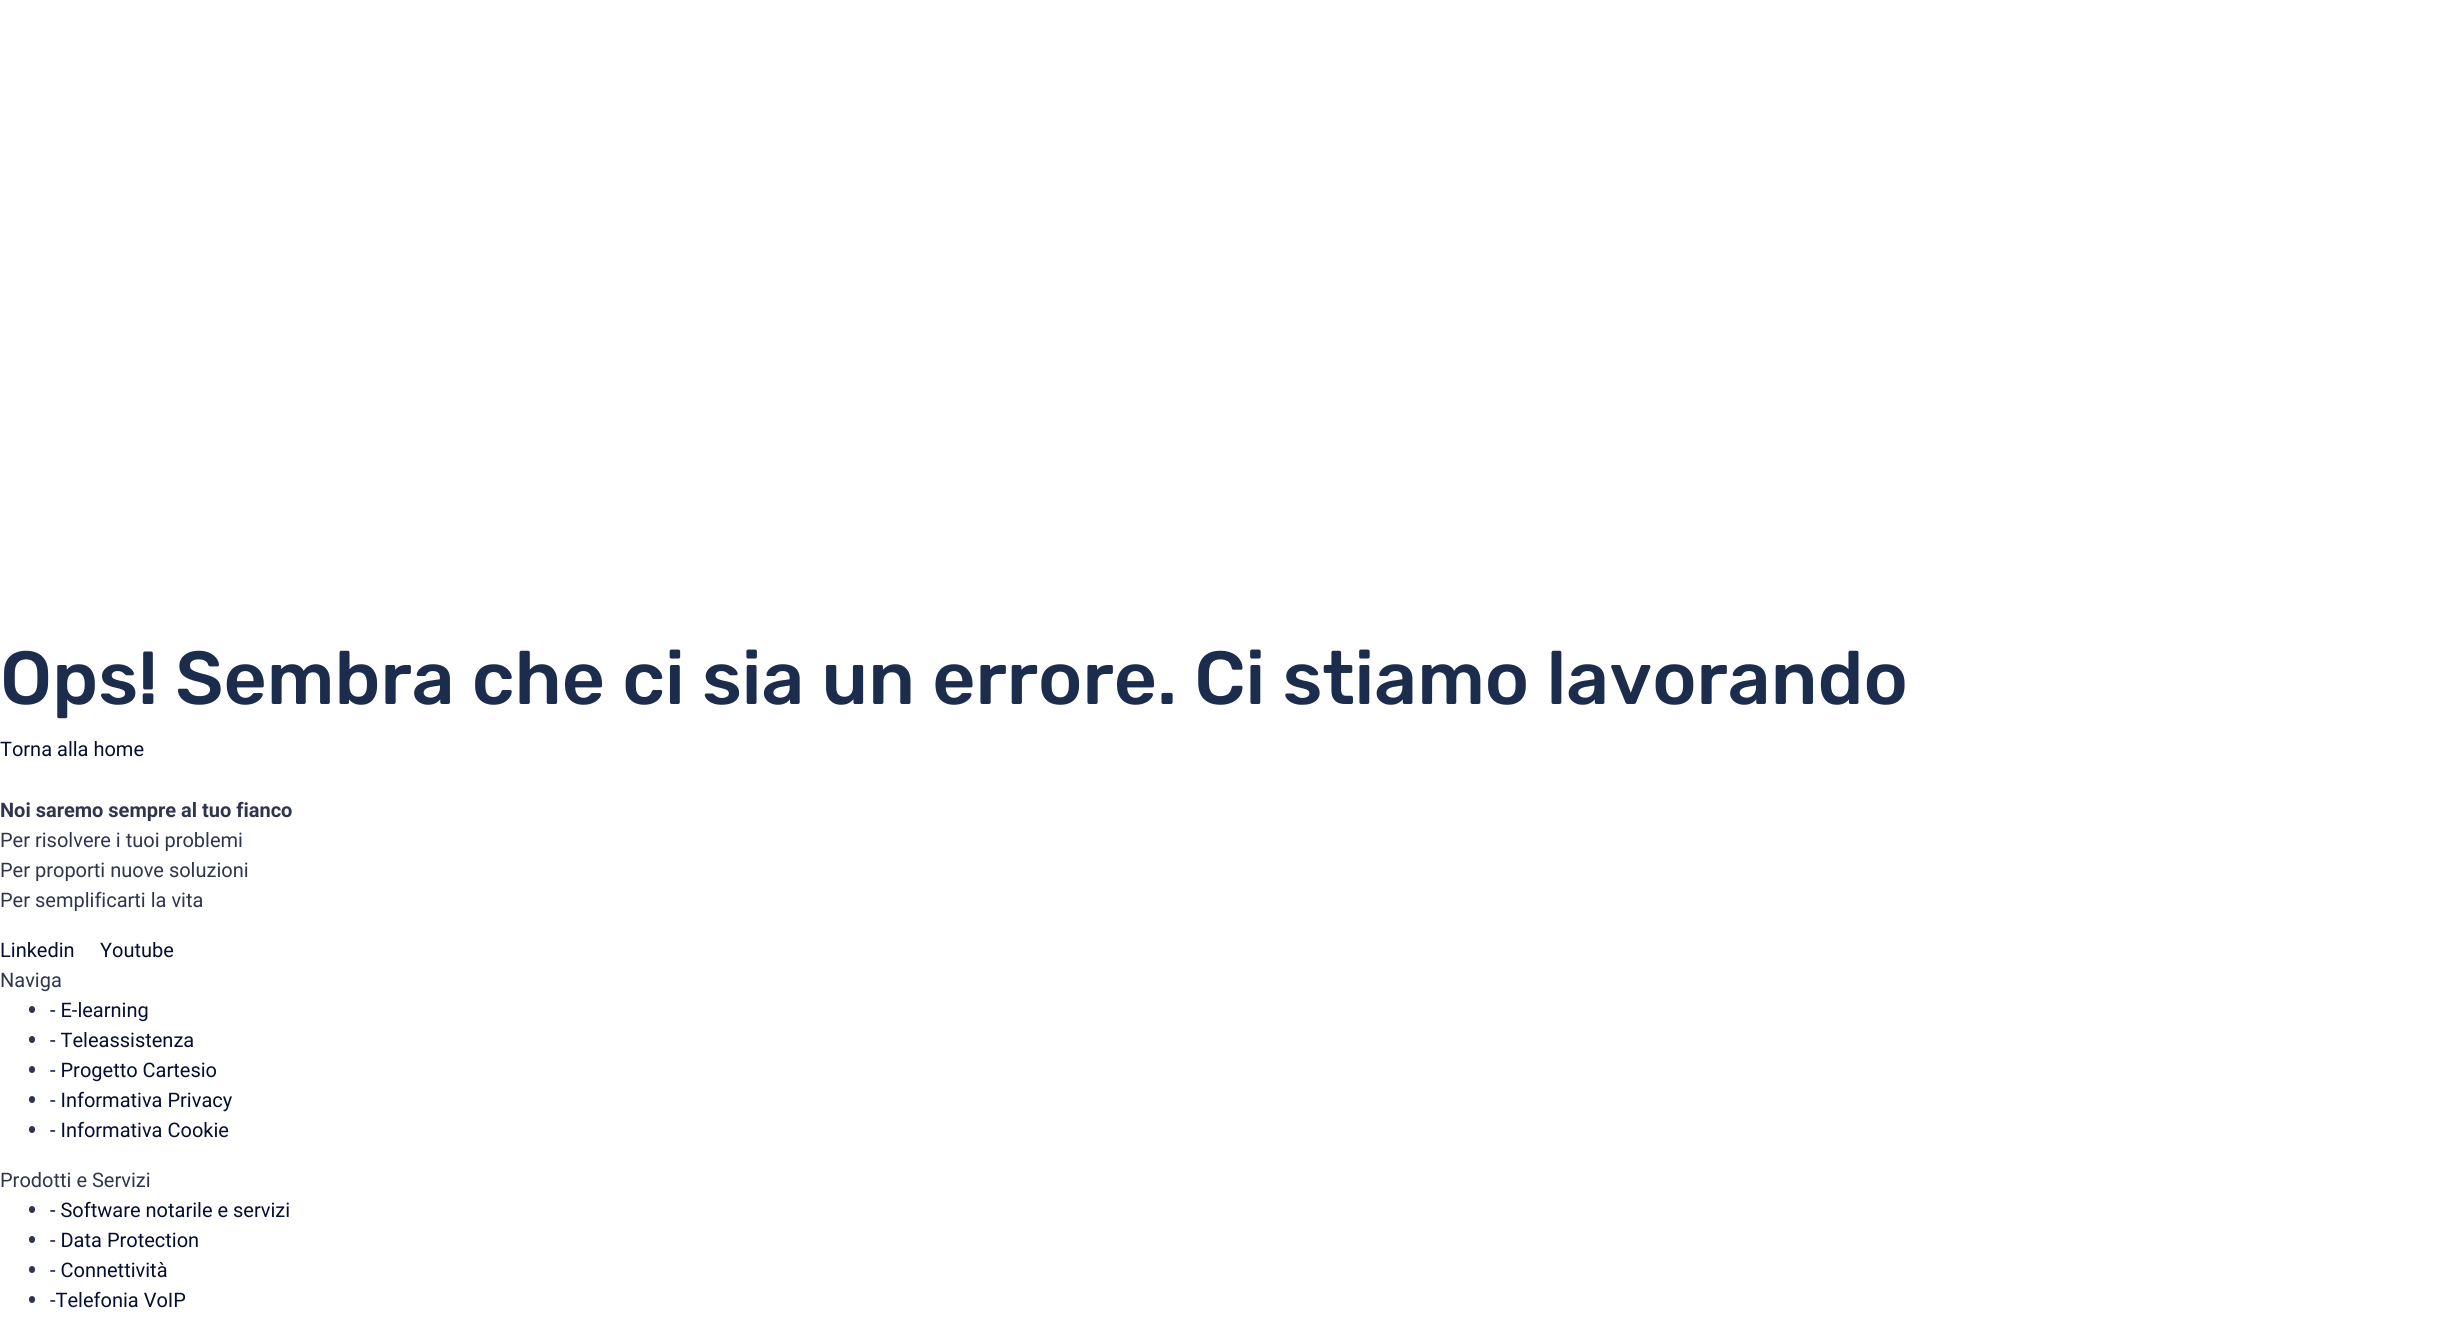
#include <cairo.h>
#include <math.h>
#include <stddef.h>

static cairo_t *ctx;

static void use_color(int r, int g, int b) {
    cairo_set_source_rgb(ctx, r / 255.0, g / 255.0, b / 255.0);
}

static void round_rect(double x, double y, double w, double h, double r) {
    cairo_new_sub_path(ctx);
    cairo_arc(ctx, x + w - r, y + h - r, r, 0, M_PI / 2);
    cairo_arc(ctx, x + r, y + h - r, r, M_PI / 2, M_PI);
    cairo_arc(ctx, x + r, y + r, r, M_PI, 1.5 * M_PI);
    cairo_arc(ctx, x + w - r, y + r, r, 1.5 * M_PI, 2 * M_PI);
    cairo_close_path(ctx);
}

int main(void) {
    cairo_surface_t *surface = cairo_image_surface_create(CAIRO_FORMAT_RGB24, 2460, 1318);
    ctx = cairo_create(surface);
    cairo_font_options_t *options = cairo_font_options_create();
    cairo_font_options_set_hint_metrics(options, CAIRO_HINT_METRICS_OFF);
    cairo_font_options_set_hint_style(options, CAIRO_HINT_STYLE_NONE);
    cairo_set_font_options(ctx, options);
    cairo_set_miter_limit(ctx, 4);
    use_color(255, 255, 255);
    cairo_paint(ctx);
    cairo_select_font_face(ctx, "Rubik Medium", CAIRO_FONT_SLANT_NORMAL, CAIRO_FONT_WEIGHT_NORMAL);
    cairo_set_font_size(ctx, 75);
    use_color(28, 44, 76);
    cairo_move_to(ctx, 0, 704);
    cairo_show_text(ctx, "Ops! Sembra che ci sia un errore. Ci stiamo lavorando");
    cairo_select_font_face(ctx, "Roboto", CAIRO_FONT_SLANT_NORMAL, CAIRO_FONT_WEIGHT_NORMAL);
    cairo_set_font_size(ctx, 20);
    use_color(4, 14, 48);
    cairo_move_to(ctx, 0, 756);
    cairo_show_text(ctx, "Torna alla home");
    cairo_select_font_face(ctx, "Roboto", CAIRO_FONT_SLANT_NORMAL, CAIRO_FONT_WEIGHT_BOLD);
    use_color(47, 53, 77);
    cairo_move_to(ctx, 0, 817);
    cairo_show_text(ctx, "Noi saremo sempre al tuo fianco");
    cairo_select_font_face(ctx, "Roboto", CAIRO_FONT_SLANT_NORMAL, CAIRO_FONT_WEIGHT_NORMAL);
    cairo_move_to(ctx, 0, 847);
    cairo_show_text(ctx, "Per risolvere i tuoi problemi");
    cairo_move_to(ctx, 0, 877);
    cairo_show_text(ctx, "Per proporti nuove soluzioni");
    cairo_move_to(ctx, 0, 907);
    cairo_show_text(ctx, "Per semplificarti la vita");
    use_color(4, 14, 48);
    cairo_move_to(ctx, 0, 957);
    cairo_show_text(ctx, "Linkedin");
    cairo_move_to(ctx, 100, 957);
    cairo_show_text(ctx, "Youtube");
    use_color(47, 53, 77);
    cairo_move_to(ctx, 0, 987);
    cairo_show_text(ctx, "Naviga");
    round_rect(29, 1006, 6, 7, 3);
    cairo_fill(ctx);
    use_color(4, 14, 48);
    cairo_move_to(ctx, 50, 1017);
    cairo_show_text(ctx, "- E-learning");
    use_color(47, 53, 77);
    round_rect(29, 1036, 6, 7, 3);
    cairo_fill(ctx);
    use_color(4, 14, 48);
    cairo_move_to(ctx, 50, 1047);
    cairo_show_text(ctx, "- Teleassistenza");
    use_color(47, 53, 77);
    round_rect(29, 1066, 6, 7, 3);
    cairo_fill(ctx);
    use_color(4, 14, 48);
    cairo_move_to(ctx, 50, 1077);
    cairo_show_text(ctx, "- Progetto Cartesio");
    use_color(47, 53, 77);
    round_rect(29, 1096, 6, 7, 3);
    cairo_fill(ctx);
    use_color(4, 14, 48);
    cairo_move_to(ctx, 50, 1107);
    cairo_show_text(ctx, "- Informativa Privacy");
    use_color(47, 53, 77);
    round_rect(29, 1126, 6, 7, 3);
    cairo_fill(ctx);
    use_color(4, 14, 48);
    cairo_move_to(ctx, 50, 1137);
    cairo_show_text(ctx, "- Informativa Cookie");
    use_color(47, 53, 77);
    cairo_move_to(ctx, 0, 1187);
    cairo_show_text(ctx, "Prodotti e Servizi");
    round_rect(29, 1206, 6, 7, 3);
    cairo_fill(ctx);
    use_color(4, 14, 48);
    cairo_move_to(ctx, 50, 1217);
    cairo_show_text(ctx, "- Software notarile e servizi");
    use_color(47, 53, 77);
    round_rect(29, 1236, 6, 7, 3);
    cairo_fill(ctx);
    use_color(4, 14, 48);
    cairo_move_to(ctx, 50, 1247);
    cairo_show_text(ctx, "- Data Protection");
    use_color(47, 53, 77);
    round_rect(29, 1266, 6, 7, 3);
    cairo_fill(ctx);
    use_color(4, 14, 48);
    cairo_move_to(ctx, 50, 1277);
    cairo_show_text(ctx, "- Connettività");
    use_color(47, 53, 77);
    round_rect(29, 1296, 6, 7, 3);
    cairo_fill(ctx);
    use_color(4, 14, 48);
    cairo_move_to(ctx, 50, 1307);
    cairo_show_text(ctx, "-Telefonia VoIP");
    cairo_surface_write_to_png(surface, "result.png");
    cairo_font_options_destroy(options);
    cairo_destroy(ctx);
    cairo_surface_destroy(surface);
    return 0;
}
